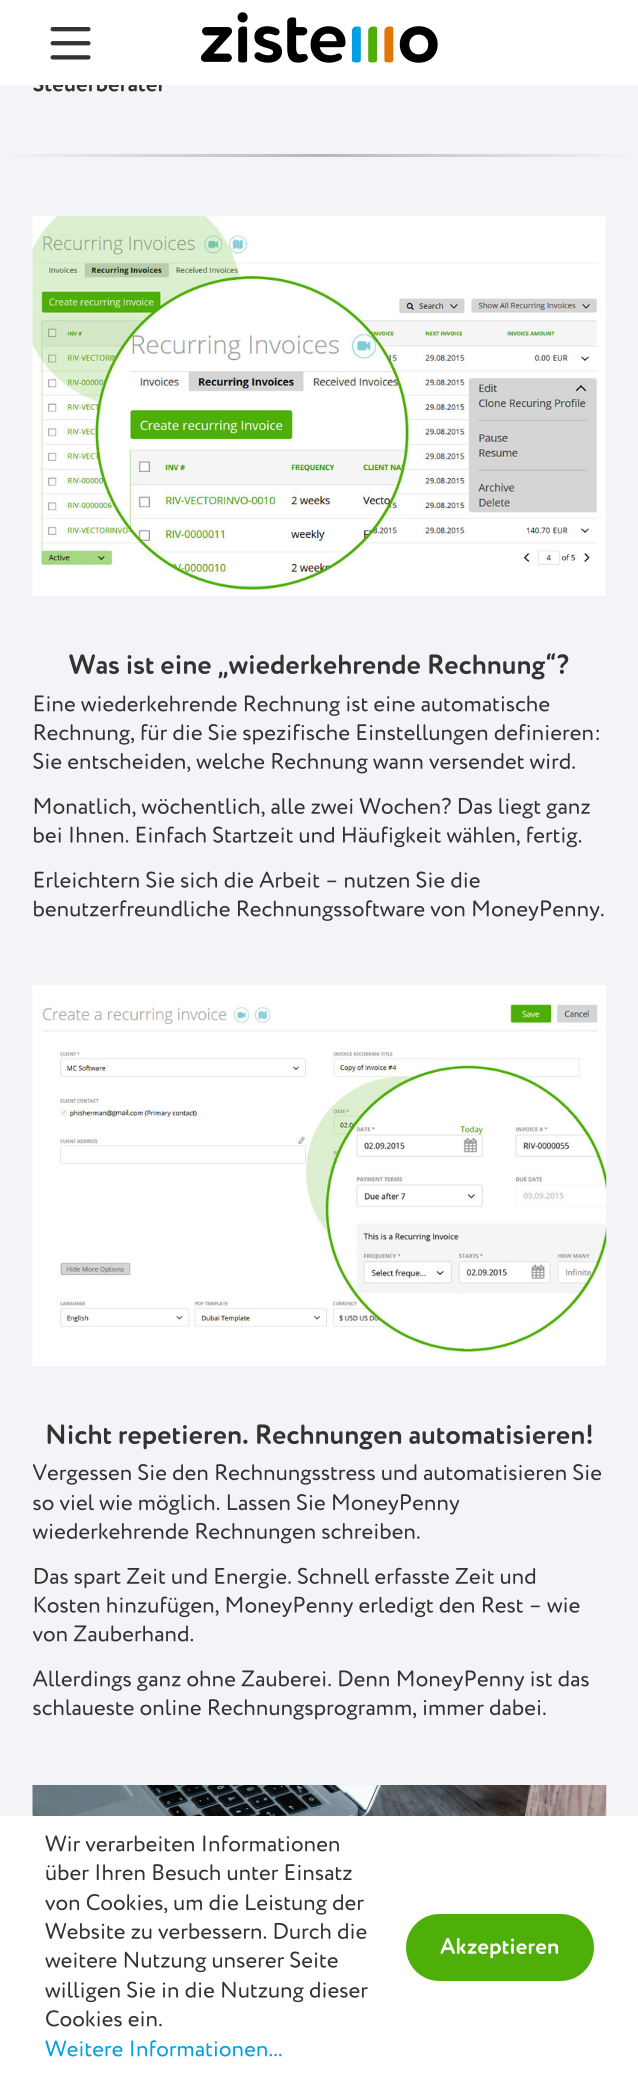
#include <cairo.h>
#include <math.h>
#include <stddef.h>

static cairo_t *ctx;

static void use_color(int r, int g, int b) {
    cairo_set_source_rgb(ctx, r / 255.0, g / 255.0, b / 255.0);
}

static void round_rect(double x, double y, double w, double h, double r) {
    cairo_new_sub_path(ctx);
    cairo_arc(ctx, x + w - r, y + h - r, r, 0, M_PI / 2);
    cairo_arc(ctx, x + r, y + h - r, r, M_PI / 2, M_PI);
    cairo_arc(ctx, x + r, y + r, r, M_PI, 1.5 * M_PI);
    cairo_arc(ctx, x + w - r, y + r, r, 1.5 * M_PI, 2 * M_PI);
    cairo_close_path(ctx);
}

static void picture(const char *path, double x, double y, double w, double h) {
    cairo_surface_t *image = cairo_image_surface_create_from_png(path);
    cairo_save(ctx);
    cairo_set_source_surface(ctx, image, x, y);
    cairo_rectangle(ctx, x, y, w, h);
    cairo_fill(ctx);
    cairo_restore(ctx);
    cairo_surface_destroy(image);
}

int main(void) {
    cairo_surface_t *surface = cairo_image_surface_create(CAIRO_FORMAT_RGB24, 638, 2080);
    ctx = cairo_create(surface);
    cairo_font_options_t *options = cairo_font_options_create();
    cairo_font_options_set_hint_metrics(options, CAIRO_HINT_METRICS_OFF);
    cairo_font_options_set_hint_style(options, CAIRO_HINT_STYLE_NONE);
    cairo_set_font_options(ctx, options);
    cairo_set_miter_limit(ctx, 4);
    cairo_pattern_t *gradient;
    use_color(244, 244, 248);
    cairo_paint(ctx);
    use_color(255, 255, 255);
    cairo_rectangle(ctx, 0, 0, 638, 85);
    cairo_fill(ctx);
    picture("img1.png", 50, 27, 41, 33);
    picture("img2.png", 200, 12, 238, 51);
    picture("img3.png", 33, 85, 129, 7);
    gradient = cairo_pattern_create_linear(0, 155, 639, 155);
    cairo_pattern_add_color_stop_rgba(gradient, 0, 0.957, 0.957, 0.973, 1);
    cairo_pattern_add_color_stop_rgba(gradient, 0.5, 0.718, 0.718, 0.729, 1);
    cairo_pattern_add_color_stop_rgba(gradient, 1, 0.957, 0.957, 0.973, 1);
    cairo_set_source(ctx, gradient);
    cairo_pattern_destroy(gradient);
    cairo_rectangle(ctx, 13, 154, 613, 3);
    cairo_fill(ctx);
    picture("img4.png", 32, 216, 574, 380);
    picture("img5.png", 69, 653, 500, 27);
    picture("img6.png", 34, 695, 516, 21);
    picture("img7.png", 34, 724, 565, 21);
    picture("img8.png", 33, 752, 542, 22);
    picture("img9.png", 34, 797, 556, 22);
    picture("img10.png", 34, 826, 548, 22);
    picture("img11.png", 34, 871, 446, 17);
    picture("img12.png", 34, 900, 570, 21);
    picture("img13.png", 32, 985, 575, 381);
    picture("img14.png", 47, 1424, 545, 26);
    picture("img15.png", 32, 1464, 570, 21);
    picture("img16.png", 33, 1494, 427, 21);
    picture("img17.png", 32, 1522, 388, 22);
    picture("img18.png", 34, 1567, 502, 22);
    picture("img19.png", 34, 1596, 546, 22);
    picture("img20.png", 33, 1625, 161, 17);
    picture("img21.png", 33, 1670, 556, 21);
    picture("img22.png", 33, 1699, 513, 21);
    picture("img23.png", 32, 1785, 575, 31);
    use_color(255, 255, 255);
    cairo_rectangle(ctx, 0, 1816, 638, 264);
    cairo_fill(ctx);
    picture("img24.png", 45, 1835, 294, 17);
    picture("img25.png", 46, 1864, 306, 17);
    picture("img26.png", 45, 1894, 319, 21);
    picture("img27.png", 45, 1922, 322, 17);
    picture("img28.png", 45, 1951, 293, 22);
    picture("img29.png", 45, 1981, 323, 22);
    picture("img30.png", 46, 2010, 116, 17);
    picture("img31.png", 45, 2040, 237, 17);
    use_color(78, 175, 8);
    round_rect(406, 1914, 188, 67, 33.5);
    cairo_fill(ctx);
    picture("img32.png", 440, 1937, 119, 22);
    cairo_surface_write_to_png(surface, "result.png");
    cairo_font_options_destroy(options);
    cairo_destroy(ctx);
    cairo_surface_destroy(surface);
    return 0;
}
